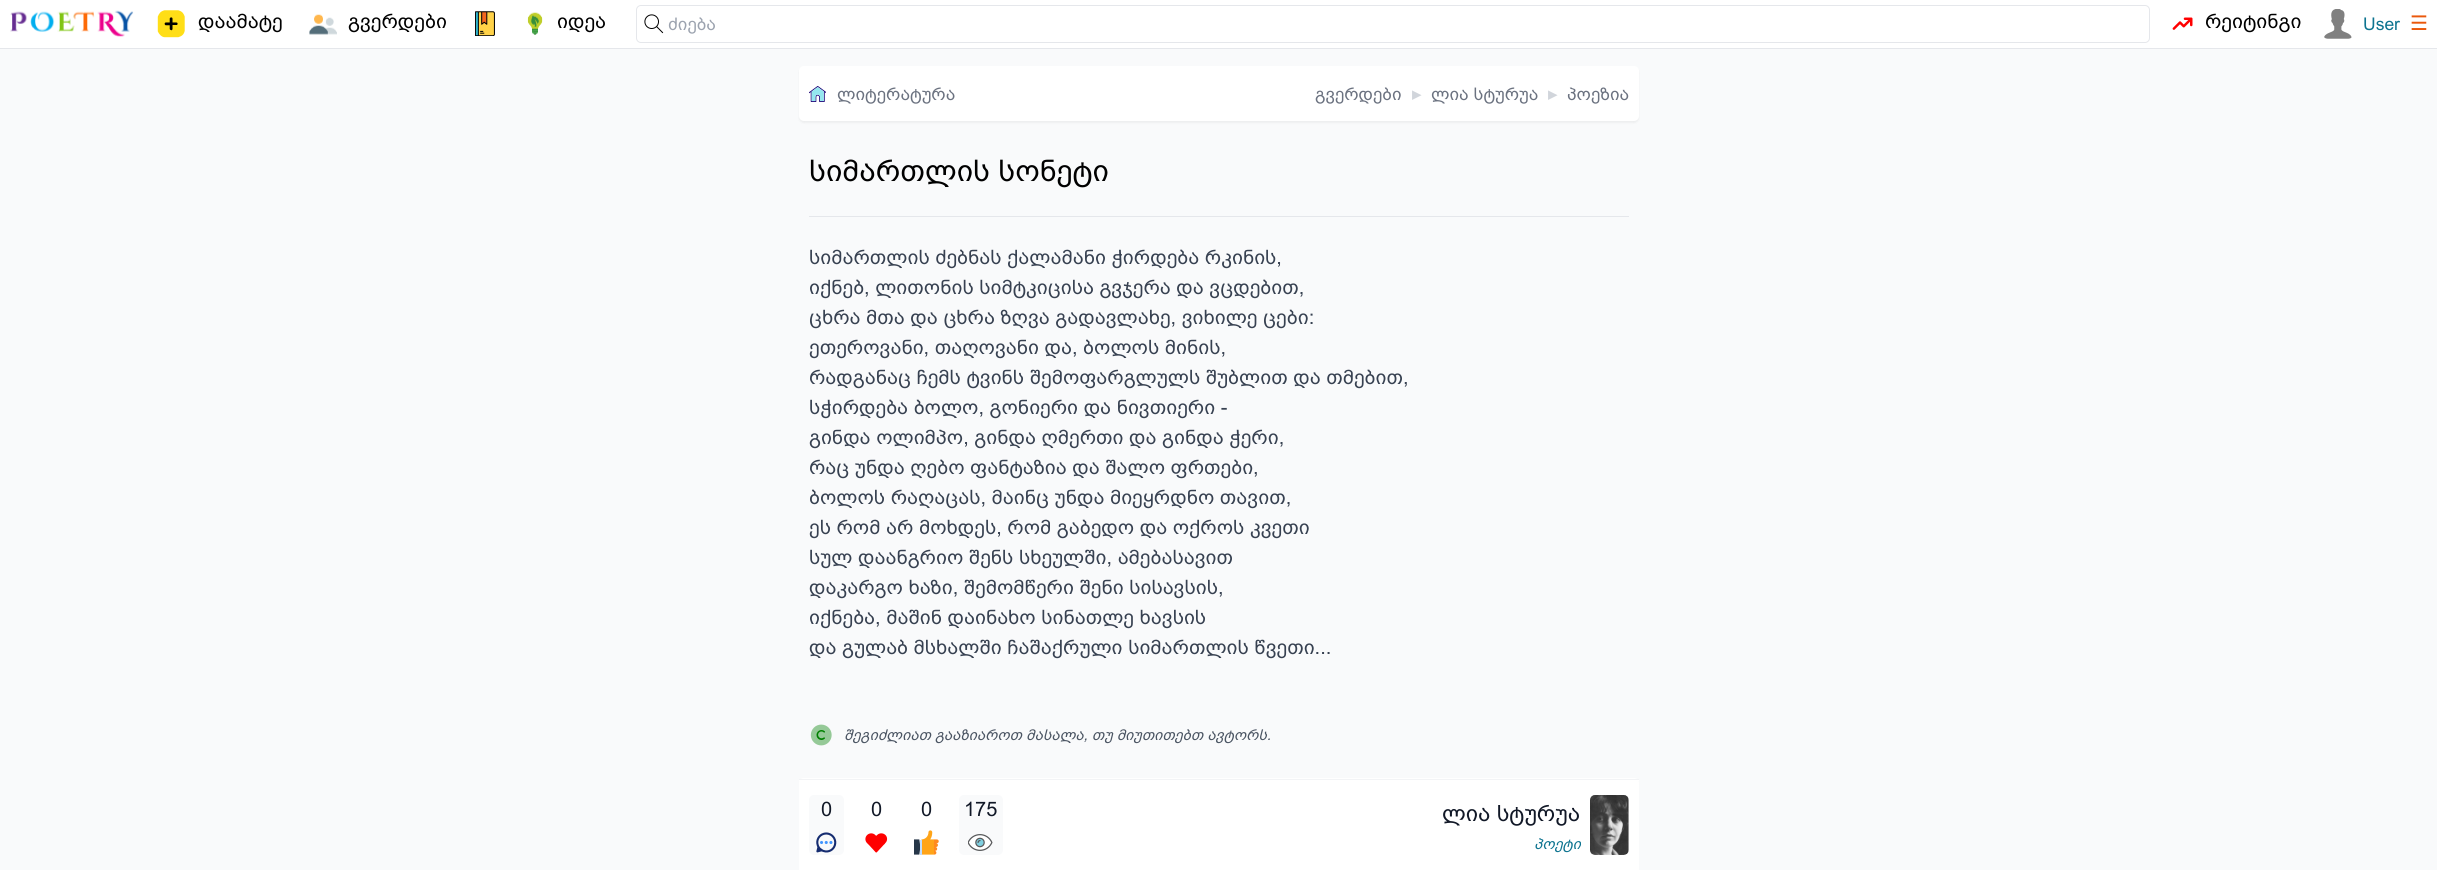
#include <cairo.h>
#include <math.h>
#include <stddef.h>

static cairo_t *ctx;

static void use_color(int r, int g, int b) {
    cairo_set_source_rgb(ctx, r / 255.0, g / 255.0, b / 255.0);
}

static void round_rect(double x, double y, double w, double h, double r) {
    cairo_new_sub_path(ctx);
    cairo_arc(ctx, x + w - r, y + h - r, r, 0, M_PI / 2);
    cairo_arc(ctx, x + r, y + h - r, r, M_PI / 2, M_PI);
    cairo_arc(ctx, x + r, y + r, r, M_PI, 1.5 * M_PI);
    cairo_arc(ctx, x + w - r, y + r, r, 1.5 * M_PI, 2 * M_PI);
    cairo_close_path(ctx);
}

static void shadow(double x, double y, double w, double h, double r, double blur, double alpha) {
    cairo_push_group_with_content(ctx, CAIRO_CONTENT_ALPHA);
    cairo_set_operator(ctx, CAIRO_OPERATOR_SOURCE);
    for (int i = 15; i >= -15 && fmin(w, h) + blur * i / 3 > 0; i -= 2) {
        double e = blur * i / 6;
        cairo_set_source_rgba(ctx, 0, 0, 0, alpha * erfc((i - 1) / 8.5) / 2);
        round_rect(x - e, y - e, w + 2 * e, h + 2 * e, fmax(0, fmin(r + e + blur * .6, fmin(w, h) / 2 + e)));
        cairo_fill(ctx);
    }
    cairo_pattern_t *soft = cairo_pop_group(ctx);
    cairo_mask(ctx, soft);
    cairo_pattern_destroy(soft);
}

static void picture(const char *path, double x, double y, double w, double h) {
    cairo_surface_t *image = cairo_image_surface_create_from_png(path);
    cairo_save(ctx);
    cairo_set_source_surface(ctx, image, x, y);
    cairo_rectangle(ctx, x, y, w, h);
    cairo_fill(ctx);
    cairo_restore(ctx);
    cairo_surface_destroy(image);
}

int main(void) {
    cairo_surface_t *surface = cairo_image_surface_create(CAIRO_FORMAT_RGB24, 2437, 870);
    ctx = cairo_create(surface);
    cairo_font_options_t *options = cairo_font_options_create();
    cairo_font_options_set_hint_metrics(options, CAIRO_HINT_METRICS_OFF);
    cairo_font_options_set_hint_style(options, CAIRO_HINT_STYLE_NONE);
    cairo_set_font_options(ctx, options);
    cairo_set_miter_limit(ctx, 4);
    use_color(249, 250, 251);
    cairo_paint(ctx);
    use_color(255, 255, 255);
    cairo_rectangle(ctx, 0, 0, 2437, 48);
    cairo_fill(ctx);
    use_color(229, 231, 235);
    cairo_rectangle(ctx, 0, 48, 2437, 1);
    cairo_fill(ctx);
    picture("img1.png", 10, 10, 124, 27);
    picture("img2.png", 157, 10, 28, 28);
    cairo_select_font_face(ctx, "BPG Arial", CAIRO_FONT_SLANT_NORMAL, CAIRO_FONT_WEIGHT_NORMAL);
    cairo_set_font_size(ctx, 20);
    use_color(0, 0, 0);
    cairo_move_to(ctx, 198, 28);
    cairo_show_text(ctx, "დაამატე");
    picture("img3.png", 309, 14, 28, 21);
    cairo_move_to(ctx, 348, 28);
    cairo_show_text(ctx, "გვერდები");
    picture("img4.png", 475, 11, 20, 25);
    picture("img5.png", 527, 12, 16, 23);
    cairo_move_to(ctx, 557, 28);
    cairo_show_text(ctx, "იდეა");
    round_rect(636.5, 5.5, 1513, 37, 4.5);
    use_color(229, 231, 235);
    cairo_set_line_width(ctx, 1);
    cairo_stroke(ctx);
    picture("img6.png", 644, 14, 20, 20);
    cairo_set_font_size(ctx, 17.5);
    use_color(156, 163, 175);
    cairo_move_to(ctx, 668, 30);
    cairo_show_text(ctx, "ძიება");
    picture("img7.png", 2172, 17, 21, 13);
    cairo_set_font_size(ctx, 20);
    use_color(0, 0, 0);
    cairo_move_to(ctx, 2205, 28);
    cairo_show_text(ctx, "რეიტინგი");
    picture("img8.png", 2324, 9, 28, 30);
    cairo_set_font_size(ctx, 17.5);
    use_color(14, 116, 144);
    cairo_move_to(ctx, 2363, 30);
    cairo_show_text(ctx, "User");
    cairo_select_font_face(ctx, "DejaVu Sans", CAIRO_FONT_SLANT_NORMAL, CAIRO_FONT_WEIGHT_NORMAL);
    cairo_set_font_size(ctx, 20);
    use_color(234, 88, 12);
    cairo_move_to(ctx, 2410, 30);
    cairo_show_text(ctx, "☰");
    use_color(0, 0, 0);
    shadow(799, 68, 840, 55, 5, 1, 0.05);
    use_color(255, 255, 255);
    round_rect(799, 66, 840, 55, 5);
    cairo_fill(ctx);
    picture("img9.png", 809, 86, 17, 16);
    cairo_select_font_face(ctx, "BPG Arial", CAIRO_FONT_SLANT_NORMAL, CAIRO_FONT_WEIGHT_NORMAL);
    cairo_set_font_size(ctx, 17.5);
    use_color(107, 114, 128);
    cairo_move_to(ctx, 837, 100);
    cairo_show_text(ctx, "ლიტერატურა");
    cairo_move_to(ctx, 1315, 100);
    cairo_show_text(ctx, "გვერდები");
    cairo_select_font_face(ctx, "DejaVu Sans", CAIRO_FONT_SLANT_NORMAL, CAIRO_FONT_WEIGHT_BOLD);
    use_color(209, 213, 219);
    cairo_move_to(ctx, 1412, 100);
    cairo_show_text(ctx, "▸");
    cairo_select_font_face(ctx, "BPG Arial", CAIRO_FONT_SLANT_NORMAL, CAIRO_FONT_WEIGHT_NORMAL);
    use_color(107, 114, 128);
    cairo_move_to(ctx, 1431, 100);
    cairo_show_text(ctx, "ლია სტურუა");
    cairo_select_font_face(ctx, "DejaVu Sans", CAIRO_FONT_SLANT_NORMAL, CAIRO_FONT_WEIGHT_BOLD);
    use_color(209, 213, 219);
    cairo_move_to(ctx, 1548, 100);
    cairo_show_text(ctx, "▸");
    cairo_select_font_face(ctx, "BPG Arial", CAIRO_FONT_SLANT_NORMAL, CAIRO_FONT_WEIGHT_NORMAL);
    use_color(107, 114, 128);
    cairo_move_to(ctx, 1567, 100);
    cairo_show_text(ctx, "პოეზია");
    cairo_set_font_size(ctx, 30);
    use_color(0, 0, 0);
    cairo_move_to(ctx, 809, 181);
    cairo_show_text(ctx, "სიმართლის სონეტი");
    use_color(229, 231, 235);
    cairo_rectangle(ctx, 809, 216, 820, 1);
    cairo_fill(ctx);
    cairo_set_font_size(ctx, 20);
    use_color(55, 65, 81);
    cairo_move_to(ctx, 809, 264);
    cairo_show_text(ctx, "სიმართლის ძებნას ქალამანი ჭირდება რკინის,");
    cairo_move_to(ctx, 809, 294);
    cairo_show_text(ctx, "იქნებ, ლითონის სიმტკიცისა გვჯერა და ვცდებით,");
    cairo_move_to(ctx, 809, 324);
    cairo_show_text(ctx, "ცხრა მთა და ცხრა ზღვა გადავლახე, ვიხილე ცები:");
    cairo_move_to(ctx, 809, 354);
    cairo_show_text(ctx, "ეთეროვანი, თაღოვანი და, ბოლოს მინის,");
    cairo_move_to(ctx, 809, 384);
    cairo_show_text(ctx, "რადგანაც ჩემს ტვინს შემოფარგლულს შუბლით და თმებით,");
    cairo_move_to(ctx, 809, 414);
    cairo_show_text(ctx, "სჭირდება ბოლო, გონიერი და ნივთიერი -");
    cairo_move_to(ctx, 809, 444);
    cairo_show_text(ctx, "გინდა ოლიმპო, გინდა ღმერთი და გინდა ჭერი,");
    cairo_move_to(ctx, 809, 474);
    cairo_show_text(ctx, "რაც უნდა ღებო ფანტაზია და შალო ფრთები,");
    cairo_move_to(ctx, 809, 504);
    cairo_show_text(ctx, "ბოლოს რაღაცას, მაინც უნდა მიეყრდნო თავით,");
    cairo_move_to(ctx, 809, 534);
    cairo_show_text(ctx, "ეს რომ არ მოხდეს, რომ გაბედო და ოქროს კვეთი");
    cairo_move_to(ctx, 809, 564);
    cairo_show_text(ctx, "სულ დაანგრიო შენს სხეულში, ამებასავით");
    cairo_move_to(ctx, 809, 594);
    cairo_show_text(ctx, "დაკარგო ხაზი, შემომწერი შენი სისავსის,");
    cairo_move_to(ctx, 809, 624);
    cairo_show_text(ctx, "იქნება, მაშინ დაინახო სინათლე ხავსის");
    cairo_move_to(ctx, 809, 654);
    cairo_show_text(ctx, "და გულაბ მსხალში ჩაშაქრული სიმართლის წვეთი...");
    picture("img10.png", 810, 724, 22, 22);
    cairo_select_font_face(ctx, "BPG Arial", CAIRO_FONT_SLANT_ITALIC, CAIRO_FONT_WEIGHT_NORMAL);
    cairo_set_font_size(ctx, 15);
    use_color(75, 85, 99);
    cairo_move_to(ctx, 844, 740);
    cairo_show_text(ctx, "შეგიძლიათ გააზიაროთ მასალა, თუ მიუთითებთ ავტორს.");
    use_color(255, 255, 255);
    round_rect(799, 778, 840, 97, 5);
    cairo_fill(ctx);
    cairo_rectangle(ctx, 799, 780, 840, 1);
    cairo_fill(ctx);
    use_color(243, 244, 246);
    cairo_rectangle(ctx, 799, 779, 840, 1);
    cairo_fill(ctx);
    use_color(249, 250, 251);
    round_rect(809, 795, 35, 60, 5);
    cairo_fill(ctx);
    cairo_select_font_face(ctx, "BPG Arial", CAIRO_FONT_SLANT_NORMAL, CAIRO_FONT_WEIGHT_NORMAL);
    cairo_set_font_size(ctx, 20);
    use_color(17, 24, 39);
    cairo_move_to(ctx, 821, 816);
    cairo_show_text(ctx, "0");
    picture("img11.png", 816, 832, 21, 21);
    cairo_move_to(ctx, 871, 816);
    cairo_show_text(ctx, "0");
    picture("img12.png", 865, 833, 23, 20);
    cairo_move_to(ctx, 921, 816);
    cairo_show_text(ctx, "0");
    picture("img13.png", 914, 830, 25, 25);
    use_color(249, 250, 251);
    round_rect(959, 795, 44, 60, 5);
    cairo_fill(ctx);
    use_color(17, 24, 39);
    cairo_move_to(ctx, 964, 816);
    cairo_show_text(ctx, "175");
    picture("img14.png", 968, 834, 25, 17);
    cairo_set_font_size(ctx, 22.5);
    cairo_move_to(ctx, 1442, 821);
    cairo_show_text(ctx, "ლია სტურუა");
    cairo_select_font_face(ctx, "BPG Arial", CAIRO_FONT_SLANT_ITALIC, CAIRO_FONT_WEIGHT_NORMAL);
    cairo_set_font_size(ctx, 15);
    use_color(14, 116, 144);
    cairo_move_to(ctx, 1534, 849);
    cairo_show_text(ctx, "პოეტი");
    picture("img15.png", 1590, 795, 39, 60);
    cairo_surface_write_to_png(surface, "result.png");
    cairo_font_options_destroy(options);
    cairo_destroy(ctx);
    cairo_surface_destroy(surface);
    return 0;
}
